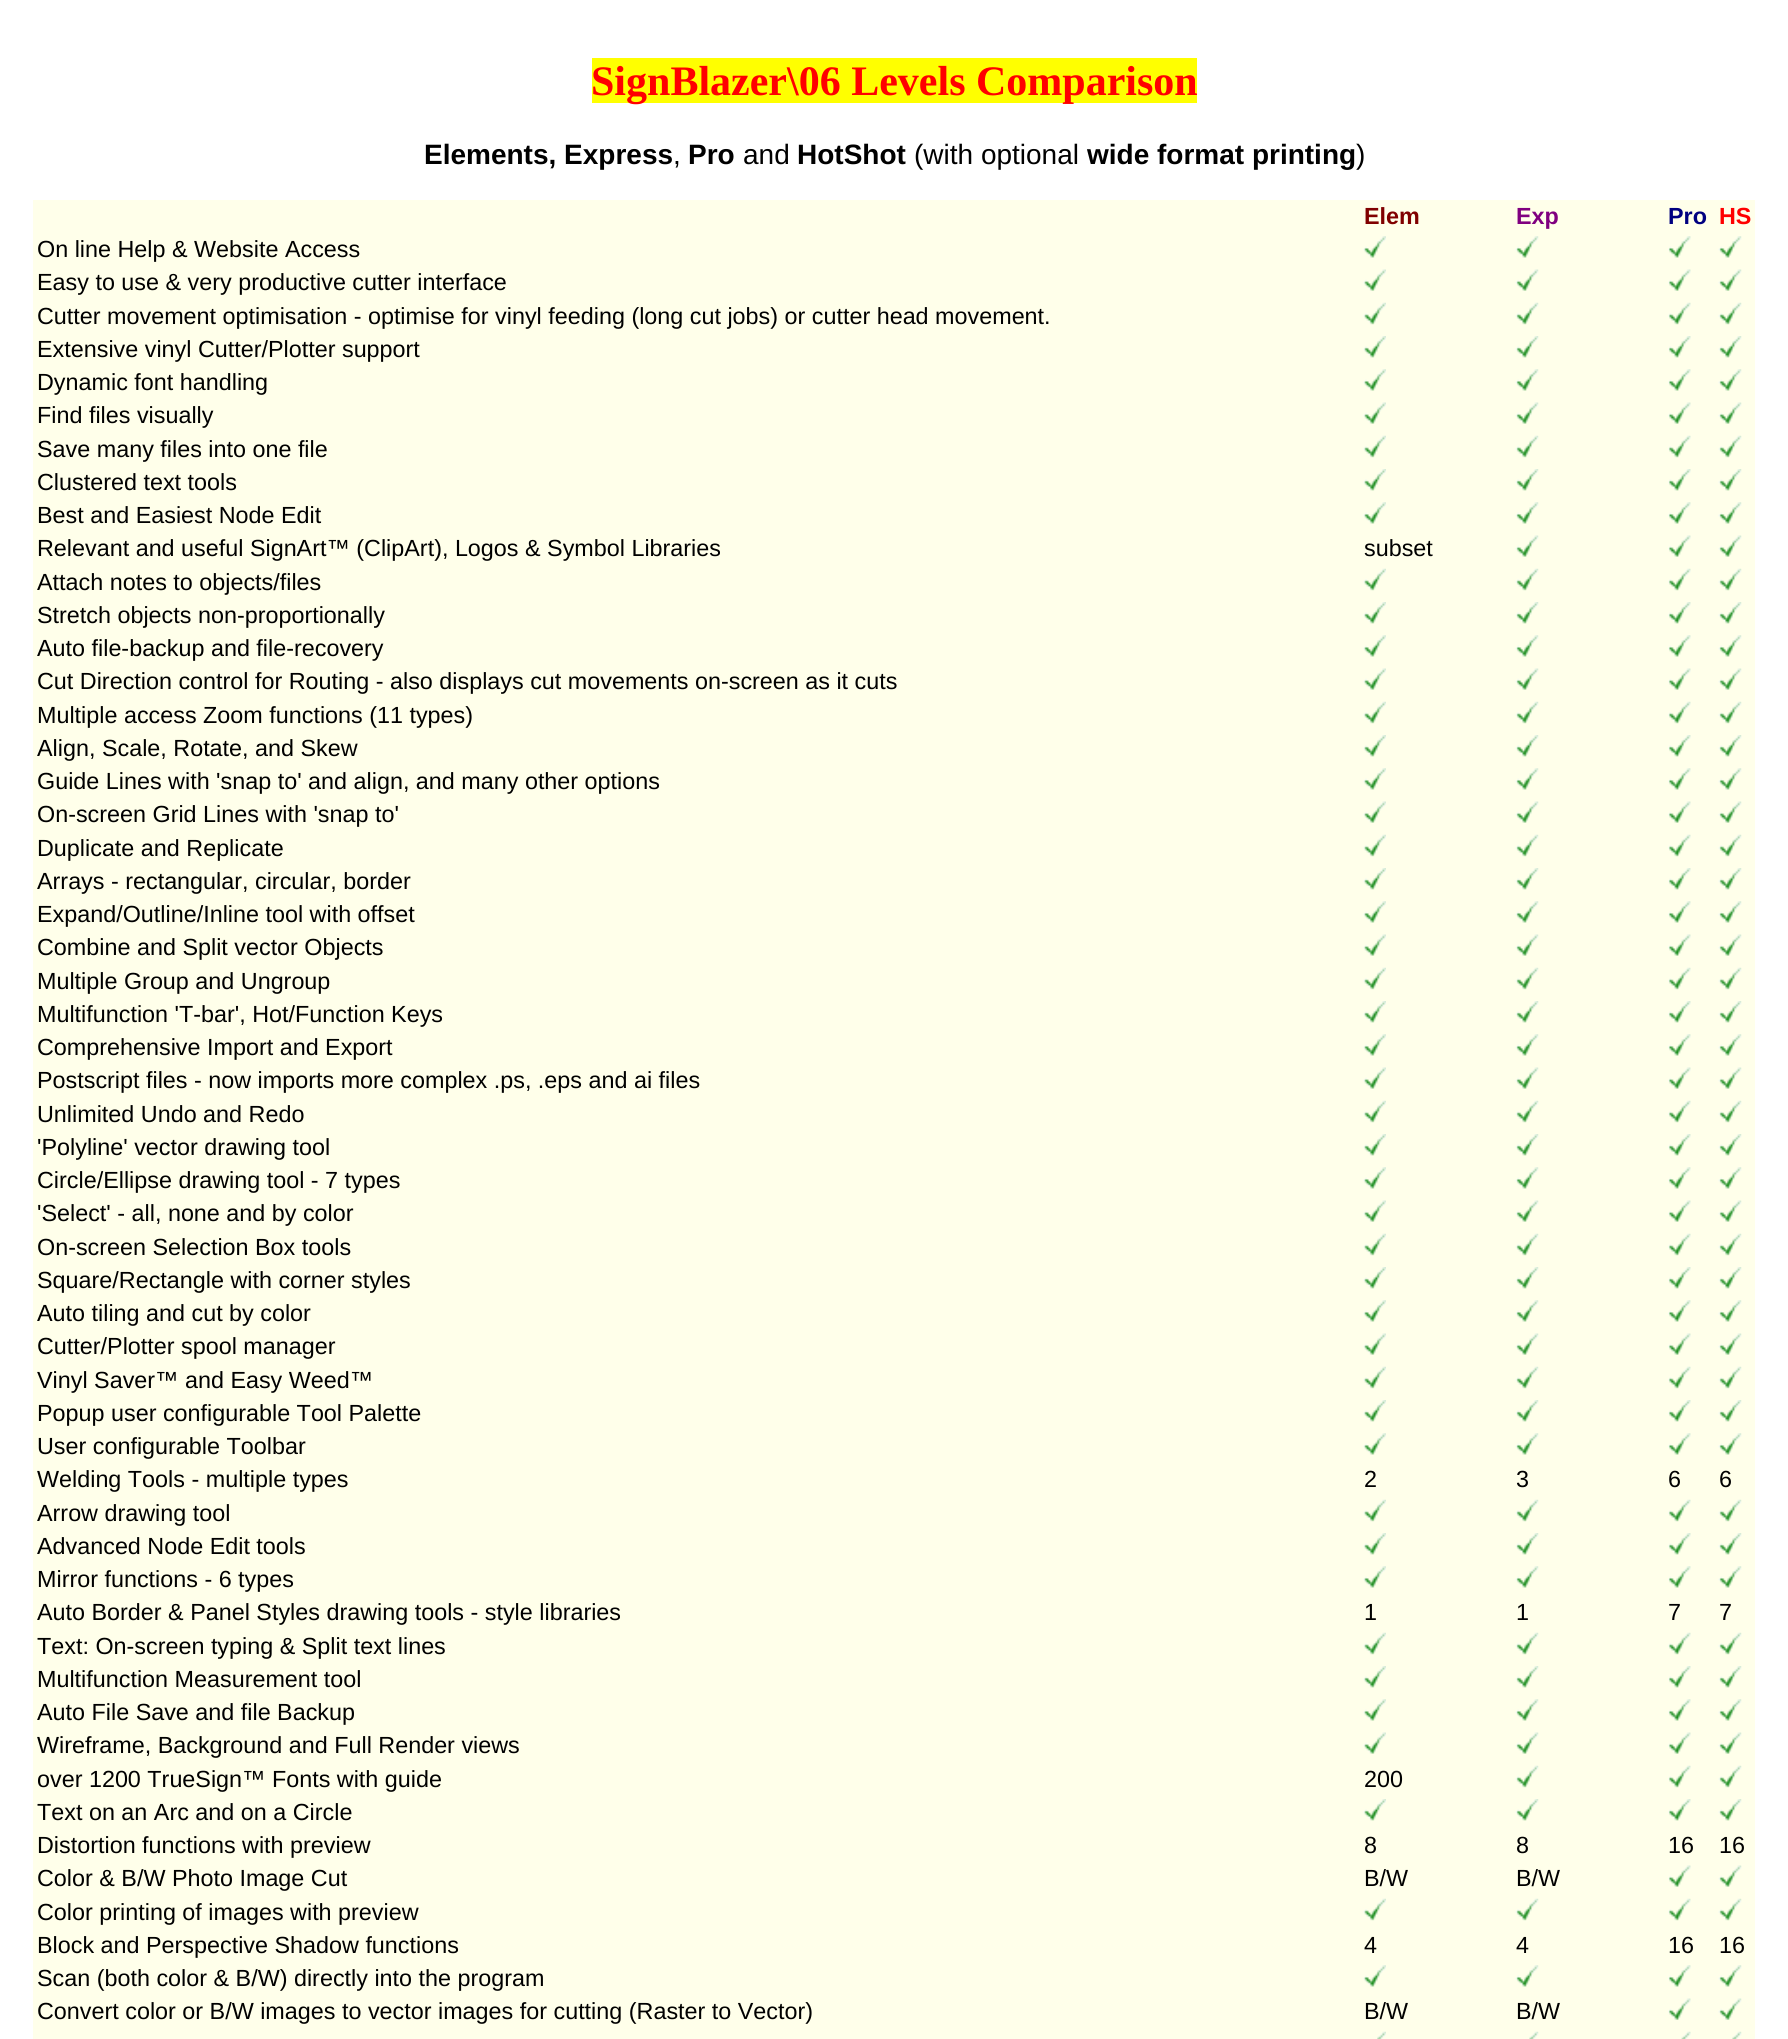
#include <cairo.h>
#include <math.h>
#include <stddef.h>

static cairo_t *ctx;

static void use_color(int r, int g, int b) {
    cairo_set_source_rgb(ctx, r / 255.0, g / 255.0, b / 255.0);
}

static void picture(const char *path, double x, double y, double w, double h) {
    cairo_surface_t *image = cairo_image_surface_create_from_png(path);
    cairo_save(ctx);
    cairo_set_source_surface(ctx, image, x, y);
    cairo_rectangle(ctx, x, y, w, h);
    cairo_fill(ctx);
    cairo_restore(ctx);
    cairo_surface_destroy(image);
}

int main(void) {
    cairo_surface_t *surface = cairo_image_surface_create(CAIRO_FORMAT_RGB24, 1788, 2039);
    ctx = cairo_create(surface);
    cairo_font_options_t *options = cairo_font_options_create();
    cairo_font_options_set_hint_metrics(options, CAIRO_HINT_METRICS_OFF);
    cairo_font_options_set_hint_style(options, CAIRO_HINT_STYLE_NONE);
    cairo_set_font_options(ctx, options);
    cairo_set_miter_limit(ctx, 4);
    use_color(255, 255, 255);
    cairo_paint(ctx);
    use_color(255, 255, 0);
    cairo_rectangle(ctx, 592, 58, 605, 45);
    cairo_fill(ctx);
    cairo_select_font_face(ctx, "Liberation Serif", CAIRO_FONT_SLANT_NORMAL, CAIRO_FONT_WEIGHT_BOLD);
    cairo_set_font_size(ctx, 42);
    use_color(255, 0, 0);
    cairo_move_to(ctx, 591, 95);
    cairo_show_text(ctx, "SignBlazer\\06 Levels Comparison");
    cairo_select_font_face(ctx, "Liberation Sans", CAIRO_FONT_SLANT_NORMAL, CAIRO_FONT_WEIGHT_BOLD);
    cairo_set_font_size(ctx, 28);
    use_color(0, 0, 0);
    cairo_move_to(ctx, 424, 164);
    cairo_show_text(ctx, "Elements, Express");
    cairo_select_font_face(ctx, "Liberation Sans", CAIRO_FONT_SLANT_NORMAL, CAIRO_FONT_WEIGHT_NORMAL);
    cairo_move_to(ctx, 673, 164);
    cairo_show_text(ctx, ",");
    cairo_select_font_face(ctx, "Liberation Sans", CAIRO_FONT_SLANT_NORMAL, CAIRO_FONT_WEIGHT_BOLD);
    cairo_move_to(ctx, 688, 164);
    cairo_show_text(ctx, "Pro");
    cairo_select_font_face(ctx, "Liberation Sans", CAIRO_FONT_SLANT_NORMAL, CAIRO_FONT_WEIGHT_NORMAL);
    cairo_move_to(ctx, 743, 164);
    cairo_show_text(ctx, "and");
    cairo_select_font_face(ctx, "Liberation Sans", CAIRO_FONT_SLANT_NORMAL, CAIRO_FONT_WEIGHT_BOLD);
    cairo_move_to(ctx, 797, 164);
    cairo_show_text(ctx, "HotShot");
    cairo_select_font_face(ctx, "Liberation Sans", CAIRO_FONT_SLANT_NORMAL, CAIRO_FONT_WEIGHT_NORMAL);
    cairo_move_to(ctx, 914, 164);
    cairo_show_text(ctx, "(with optional");
    cairo_select_font_face(ctx, "Liberation Sans", CAIRO_FONT_SLANT_NORMAL, CAIRO_FONT_WEIGHT_BOLD);
    cairo_move_to(ctx, 1087, 164);
    cairo_show_text(ctx, "wide format printing");
    cairo_select_font_face(ctx, "Liberation Sans", CAIRO_FONT_SLANT_NORMAL, CAIRO_FONT_WEIGHT_NORMAL);
    cairo_move_to(ctx, 1356, 164);
    cairo_show_text(ctx, ")");
    use_color(255, 255, 234);
    cairo_rectangle(ctx, 33, 200, 1722, 1839);
    cairo_fill(ctx);
    cairo_select_font_face(ctx, "Liberation Sans", CAIRO_FONT_SLANT_NORMAL, CAIRO_FONT_WEIGHT_BOLD);
    cairo_set_font_size(ctx, 23.35);
    use_color(128, 0, 0);
    cairo_move_to(ctx, 1364, 224);
    cairo_show_text(ctx, "Elem");
    use_color(128, 0, 128);
    cairo_move_to(ctx, 1516, 224);
    cairo_show_text(ctx, "Exp");
    use_color(0, 0, 128);
    cairo_move_to(ctx, 1668, 224);
    cairo_show_text(ctx, "Pro");
    use_color(255, 0, 0);
    cairo_move_to(ctx, 1719, 224);
    cairo_show_text(ctx, "HS");
    cairo_select_font_face(ctx, "Liberation Sans", CAIRO_FONT_SLANT_NORMAL, CAIRO_FONT_WEIGHT_NORMAL);
    use_color(0, 0, 0);
    cairo_move_to(ctx, 37, 257);
    cairo_show_text(ctx, "On line Help & Website Access");
    picture("img1.png", 1363, 236, 23, 22);
    picture("img2.png", 1515, 236, 24, 22);
    picture("img3.png", 1668, 236, 23, 22);
    picture("img4.png", 1718, 236, 24, 22);
    cairo_move_to(ctx, 37, 290);
    cairo_show_text(ctx, "Easy to use & very productive cutter interface");
    picture("img5.png", 1363, 269, 23, 22);
    picture("img6.png", 1515, 269, 24, 22);
    picture("img7.png", 1668, 269, 23, 22);
    picture("img8.png", 1718, 269, 24, 22);
    cairo_move_to(ctx, 37, 324);
    cairo_show_text(ctx, "Cutter movement optimisation - optimise for vinyl feeding (long cut jobs) or cutter head movement.");
    picture("img9.png", 1363, 302, 23, 23);
    picture("img10.png", 1515, 302, 24, 23);
    picture("img11.png", 1668, 302, 23, 23);
    picture("img12.png", 1718, 302, 24, 23);
    cairo_move_to(ctx, 37, 357);
    cairo_show_text(ctx, "Extensive vinyl Cutter/Plotter support");
    picture("img13.png", 1363, 336, 23, 22);
    picture("img14.png", 1515, 336, 24, 22);
    picture("img15.png", 1668, 336, 23, 22);
    picture("img16.png", 1718, 336, 24, 22);
    cairo_move_to(ctx, 37, 390);
    cairo_show_text(ctx, "Dynamic font handling");
    picture("img1.png", 1363, 369, 23, 22);
    picture("img2.png", 1515, 369, 24, 22);
    picture("img3.png", 1668, 369, 23, 22);
    picture("img4.png", 1718, 369, 24, 22);
    cairo_move_to(ctx, 37, 423);
    cairo_show_text(ctx, "Find files visually");
    picture("img5.png", 1363, 402, 23, 22);
    picture("img6.png", 1515, 402, 24, 22);
    picture("img7.png", 1668, 402, 23, 22);
    picture("img8.png", 1718, 402, 24, 22);
    cairo_move_to(ctx, 37, 457);
    cairo_show_text(ctx, "Save many files into one file");
    picture("img9.png", 1363, 435, 23, 23);
    picture("img10.png", 1515, 435, 24, 23);
    picture("img11.png", 1668, 435, 23, 23);
    picture("img12.png", 1718, 435, 24, 23);
    cairo_move_to(ctx, 37, 490);
    cairo_show_text(ctx, "Clustered text tools");
    picture("img13.png", 1363, 469, 23, 22);
    picture("img14.png", 1515, 469, 24, 22);
    picture("img15.png", 1668, 469, 23, 22);
    picture("img16.png", 1718, 469, 24, 22);
    cairo_move_to(ctx, 37, 523);
    cairo_show_text(ctx, "Best and Easiest Node Edit");
    picture("img1.png", 1363, 502, 23, 22);
    picture("img2.png", 1515, 502, 24, 22);
    picture("img3.png", 1668, 502, 23, 22);
    picture("img4.png", 1718, 502, 24, 22);
    cairo_move_to(ctx, 37, 556);
    cairo_show_text(ctx, "Relevant and useful SignArt™ (ClipArt), Logos & Symbol Libraries");
    cairo_move_to(ctx, 1364, 556);
    cairo_show_text(ctx, "subset");
    picture("img6.png", 1515, 535, 24, 22);
    picture("img7.png", 1668, 535, 23, 22);
    picture("img8.png", 1718, 535, 24, 22);
    cairo_move_to(ctx, 37, 590);
    cairo_show_text(ctx, "Attach notes to objects/files");
    picture("img9.png", 1363, 568, 23, 23);
    picture("img10.png", 1515, 568, 24, 23);
    picture("img11.png", 1668, 568, 23, 23);
    picture("img12.png", 1718, 568, 24, 23);
    cairo_move_to(ctx, 37, 623);
    cairo_show_text(ctx, "Stretch objects non-proportionally");
    picture("img13.png", 1363, 602, 23, 22);
    picture("img14.png", 1515, 602, 24, 22);
    picture("img15.png", 1668, 602, 23, 22);
    picture("img16.png", 1718, 602, 24, 22);
    cairo_move_to(ctx, 37, 656);
    cairo_show_text(ctx, "Auto file-backup and file-recovery");
    picture("img1.png", 1363, 635, 23, 22);
    picture("img2.png", 1515, 635, 24, 22);
    picture("img3.png", 1668, 635, 23, 22);
    picture("img4.png", 1718, 635, 24, 22);
    cairo_move_to(ctx, 37, 689);
    cairo_show_text(ctx, "Cut Direction control for Routing - also displays cut movements on-screen as it cuts");
    picture("img5.png", 1363, 668, 23, 22);
    picture("img6.png", 1515, 668, 24, 22);
    picture("img7.png", 1668, 668, 23, 22);
    picture("img8.png", 1718, 668, 24, 22);
    cairo_move_to(ctx, 37, 723);
    cairo_show_text(ctx, "Multiple access Zoom functions (11 types)");
    picture("img9.png", 1363, 701, 23, 23);
    picture("img10.png", 1515, 701, 24, 23);
    picture("img11.png", 1668, 701, 23, 23);
    picture("img12.png", 1718, 701, 24, 23);
    cairo_move_to(ctx, 37, 756);
    cairo_show_text(ctx, "Align, Scale, Rotate, and Skew");
    picture("img13.png", 1363, 735, 23, 22);
    picture("img14.png", 1515, 735, 24, 22);
    picture("img15.png", 1668, 735, 23, 22);
    picture("img16.png", 1718, 735, 24, 22);
    cairo_move_to(ctx, 37, 789);
    cairo_show_text(ctx, "Guide Lines with 'snap to' and align, and many other options");
    picture("img1.png", 1363, 768, 23, 22);
    picture("img2.png", 1515, 768, 24, 22);
    picture("img3.png", 1668, 768, 23, 22);
    picture("img4.png", 1718, 768, 24, 22);
    cairo_move_to(ctx, 37, 822);
    cairo_show_text(ctx, "On-screen Grid Lines with 'snap to'");
    picture("img5.png", 1363, 801, 23, 22);
    picture("img6.png", 1515, 801, 24, 22);
    picture("img7.png", 1668, 801, 23, 22);
    picture("img8.png", 1718, 801, 24, 22);
    cairo_move_to(ctx, 37, 856);
    cairo_show_text(ctx, "Duplicate and Replicate");
    picture("img9.png", 1363, 834, 23, 23);
    picture("img10.png", 1515, 834, 24, 23);
    picture("img11.png", 1668, 834, 23, 23);
    picture("img12.png", 1718, 834, 24, 23);
    cairo_move_to(ctx, 37, 889);
    cairo_show_text(ctx, "Arrays - rectangular, circular, border");
    picture("img13.png", 1363, 868, 23, 22);
    picture("img14.png", 1515, 868, 24, 22);
    picture("img15.png", 1668, 868, 23, 22);
    picture("img16.png", 1718, 868, 24, 22);
    cairo_move_to(ctx, 37, 922);
    cairo_show_text(ctx, "Expand/Outline/Inline tool with offset");
    picture("img1.png", 1363, 901, 23, 22);
    picture("img2.png", 1515, 901, 24, 22);
    picture("img3.png", 1668, 901, 23, 22);
    picture("img4.png", 1718, 901, 24, 22);
    cairo_move_to(ctx, 37, 955);
    cairo_show_text(ctx, "Combine and Split vector Objects");
    picture("img5.png", 1363, 934, 23, 22);
    picture("img6.png", 1515, 934, 24, 22);
    picture("img7.png", 1668, 934, 23, 22);
    picture("img8.png", 1718, 934, 24, 22);
    cairo_move_to(ctx, 37, 989);
    cairo_show_text(ctx, "Multiple Group and Ungroup");
    picture("img9.png", 1363, 967, 23, 23);
    picture("img10.png", 1515, 967, 24, 23);
    picture("img11.png", 1668, 967, 23, 23);
    picture("img12.png", 1718, 967, 24, 23);
    cairo_move_to(ctx, 37, 1022);
    cairo_show_text(ctx, "Multifunction 'T-bar', Hot/Function Keys");
    picture("img13.png", 1363, 1001, 23, 22);
    picture("img14.png", 1515, 1001, 24, 22);
    picture("img15.png", 1668, 1001, 23, 22);
    picture("img16.png", 1718, 1001, 24, 22);
    cairo_move_to(ctx, 37, 1055);
    cairo_show_text(ctx, "Comprehensive Import and Export");
    picture("img1.png", 1363, 1034, 23, 22);
    picture("img2.png", 1515, 1034, 24, 22);
    picture("img3.png", 1668, 1034, 23, 22);
    picture("img4.png", 1718, 1034, 24, 22);
    cairo_move_to(ctx, 37, 1088);
    cairo_show_text(ctx, "Postscript files - now imports more complex .ps, .eps and ai files");
    picture("img5.png", 1363, 1067, 23, 22);
    picture("img6.png", 1515, 1067, 24, 22);
    picture("img7.png", 1668, 1067, 23, 22);
    picture("img8.png", 1718, 1067, 24, 22);
    cairo_move_to(ctx, 37, 1122);
    cairo_show_text(ctx, "Unlimited Undo and Redo");
    picture("img9.png", 1363, 1100, 23, 23);
    picture("img10.png", 1515, 1100, 24, 23);
    picture("img11.png", 1668, 1100, 23, 23);
    picture("img12.png", 1718, 1100, 24, 23);
    cairo_move_to(ctx, 37, 1155);
    cairo_show_text(ctx, "'Polyline' vector drawing tool");
    picture("img13.png", 1363, 1134, 23, 22);
    picture("img14.png", 1515, 1134, 24, 22);
    picture("img15.png", 1668, 1134, 23, 22);
    picture("img16.png", 1718, 1134, 24, 22);
    cairo_move_to(ctx, 37, 1188);
    cairo_show_text(ctx, "Circle/Ellipse drawing tool - 7 types");
    picture("img1.png", 1363, 1167, 23, 22);
    picture("img2.png", 1515, 1167, 24, 22);
    picture("img3.png", 1668, 1167, 23, 22);
    picture("img4.png", 1718, 1167, 24, 22);
    cairo_move_to(ctx, 37, 1221);
    cairo_show_text(ctx, "'Select' - all, none and by color");
    picture("img5.png", 1363, 1200, 23, 22);
    picture("img6.png", 1515, 1200, 24, 22);
    picture("img7.png", 1668, 1200, 23, 22);
    picture("img8.png", 1718, 1200, 24, 22);
    cairo_move_to(ctx, 37, 1255);
    cairo_show_text(ctx, "On-screen Selection Box tools");
    picture("img9.png", 1363, 1233, 23, 23);
    picture("img10.png", 1515, 1233, 24, 23);
    picture("img11.png", 1668, 1233, 23, 23);
    picture("img12.png", 1718, 1233, 24, 23);
    cairo_move_to(ctx, 37, 1288);
    cairo_show_text(ctx, "Square/Rectangle with corner styles");
    picture("img13.png", 1363, 1267, 23, 22);
    picture("img14.png", 1515, 1267, 24, 22);
    picture("img15.png", 1668, 1267, 23, 22);
    picture("img16.png", 1718, 1267, 24, 22);
    cairo_move_to(ctx, 37, 1321);
    cairo_show_text(ctx, "Auto tiling and cut by color");
    picture("img1.png", 1363, 1300, 23, 22);
    picture("img2.png", 1515, 1300, 24, 22);
    picture("img3.png", 1668, 1300, 23, 22);
    picture("img4.png", 1718, 1300, 24, 22);
    cairo_move_to(ctx, 37, 1354);
    cairo_show_text(ctx, "Cutter/Plotter spool manager");
    picture("img5.png", 1363, 1333, 23, 22);
    picture("img6.png", 1515, 1333, 24, 22);
    picture("img7.png", 1668, 1333, 23, 22);
    picture("img8.png", 1718, 1333, 24, 22);
    cairo_move_to(ctx, 37, 1388);
    cairo_show_text(ctx, "Vinyl Saver™ and Easy Weed™");
    picture("img9.png", 1363, 1366, 23, 23);
    picture("img10.png", 1515, 1366, 24, 23);
    picture("img11.png", 1668, 1366, 23, 23);
    picture("img12.png", 1718, 1366, 24, 23);
    cairo_move_to(ctx, 37, 1421);
    cairo_show_text(ctx, "Popup user configurable Tool Palette");
    picture("img13.png", 1363, 1400, 23, 22);
    picture("img14.png", 1515, 1400, 24, 22);
    picture("img15.png", 1668, 1400, 23, 22);
    picture("img16.png", 1718, 1400, 24, 22);
    cairo_move_to(ctx, 37, 1454);
    cairo_show_text(ctx, "User configurable Toolbar");
    picture("img1.png", 1363, 1433, 23, 22);
    picture("img2.png", 1515, 1433, 24, 22);
    picture("img3.png", 1668, 1433, 23, 22);
    picture("img4.png", 1718, 1433, 24, 22);
    cairo_move_to(ctx, 37, 1487);
    cairo_show_text(ctx, "Welding Tools - multiple types");
    cairo_move_to(ctx, 1364, 1487);
    cairo_show_text(ctx, "2");
    cairo_move_to(ctx, 1516, 1487);
    cairo_show_text(ctx, "3");
    cairo_move_to(ctx, 1668, 1487);
    cairo_show_text(ctx, "6");
    cairo_move_to(ctx, 1719, 1487);
    cairo_show_text(ctx, "6");
    cairo_move_to(ctx, 37, 1521);
    cairo_show_text(ctx, "Arrow drawing tool");
    picture("img9.png", 1363, 1499, 23, 23);
    picture("img10.png", 1515, 1499, 24, 23);
    picture("img11.png", 1668, 1499, 23, 23);
    picture("img12.png", 1718, 1499, 24, 23);
    cairo_move_to(ctx, 37, 1554);
    cairo_show_text(ctx, "Advanced Node Edit tools");
    picture("img13.png", 1363, 1533, 23, 22);
    picture("img14.png", 1515, 1533, 24, 22);
    picture("img15.png", 1668, 1533, 23, 22);
    picture("img16.png", 1718, 1533, 24, 22);
    cairo_move_to(ctx, 37, 1587);
    cairo_show_text(ctx, "Mirror functions - 6 types");
    picture("img1.png", 1363, 1566, 23, 22);
    picture("img2.png", 1515, 1566, 24, 22);
    picture("img3.png", 1668, 1566, 23, 22);
    picture("img4.png", 1718, 1566, 24, 22);
    cairo_move_to(ctx, 37, 1620);
    cairo_show_text(ctx, "Auto Border & Panel Styles drawing tools - style libraries");
    cairo_move_to(ctx, 1364, 1620);
    cairo_show_text(ctx, "1");
    cairo_move_to(ctx, 1516, 1620);
    cairo_show_text(ctx, "1");
    cairo_move_to(ctx, 1668, 1620);
    cairo_show_text(ctx, "7");
    cairo_move_to(ctx, 1719, 1620);
    cairo_show_text(ctx, "7");
    cairo_move_to(ctx, 37, 1654);
    cairo_show_text(ctx, "Text: On-screen typing & Split text lines");
    picture("img9.png", 1363, 1632, 23, 23);
    picture("img10.png", 1515, 1632, 24, 23);
    picture("img11.png", 1668, 1632, 23, 23);
    picture("img12.png", 1718, 1632, 24, 23);
    cairo_move_to(ctx, 37, 1687);
    cairo_show_text(ctx, "Multifunction Measurement tool");
    picture("img13.png", 1363, 1666, 23, 22);
    picture("img14.png", 1515, 1666, 24, 22);
    picture("img15.png", 1668, 1666, 23, 22);
    picture("img16.png", 1718, 1666, 24, 22);
    cairo_move_to(ctx, 37, 1720);
    cairo_show_text(ctx, "Auto File Save and file Backup");
    picture("img1.png", 1363, 1699, 23, 22);
    picture("img2.png", 1515, 1699, 24, 22);
    picture("img3.png", 1668, 1699, 23, 22);
    picture("img4.png", 1718, 1699, 24, 22);
    cairo_move_to(ctx, 37, 1753);
    cairo_show_text(ctx, "Wireframe, Background and Full Render views");
    picture("img5.png", 1363, 1732, 23, 22);
    picture("img6.png", 1515, 1732, 24, 22);
    picture("img7.png", 1668, 1732, 23, 22);
    picture("img8.png", 1718, 1732, 24, 22);
    cairo_move_to(ctx, 37, 1787);
    cairo_show_text(ctx, "over 1200 TrueSign™ Fonts with guide");
    cairo_move_to(ctx, 1364, 1787);
    cairo_show_text(ctx, "200");
    picture("img10.png", 1515, 1765, 24, 23);
    picture("img11.png", 1668, 1765, 23, 23);
    picture("img12.png", 1718, 1765, 24, 23);
    cairo_move_to(ctx, 37, 1820);
    cairo_show_text(ctx, "Text on an Arc and on a Circle");
    picture("img17.png", 1363, 1799, 23, 22);
    picture("img18.png", 1515, 1799, 24, 22);
    picture("img19.png", 1668, 1799, 23, 22);
    picture("img20.png", 1718, 1799, 24, 22);
    cairo_move_to(ctx, 37, 1853);
    cairo_show_text(ctx, "Distortion functions with preview");
    cairo_move_to(ctx, 1364, 1853);
    cairo_show_text(ctx, "8");
    cairo_move_to(ctx, 1516, 1853);
    cairo_show_text(ctx, "8");
    cairo_move_to(ctx, 1668, 1853);
    cairo_show_text(ctx, "16");
    cairo_move_to(ctx, 1719, 1853);
    cairo_show_text(ctx, "16");
    cairo_move_to(ctx, 37, 1886);
    cairo_show_text(ctx, "Color & B/W Photo Image Cut");
    cairo_move_to(ctx, 1364, 1886);
    cairo_show_text(ctx, "B/W");
    cairo_move_to(ctx, 1516, 1886);
    cairo_show_text(ctx, "B/W");
    picture("img7.png", 1668, 1865, 23, 22);
    picture("img8.png", 1718, 1865, 24, 22);
    cairo_move_to(ctx, 37, 1920);
    cairo_show_text(ctx, "Color printing of images with preview");
    picture("img9.png", 1363, 1898, 23, 23);
    picture("img10.png", 1515, 1898, 24, 23);
    picture("img11.png", 1668, 1898, 23, 23);
    picture("img12.png", 1718, 1898, 24, 23);
    cairo_move_to(ctx, 37, 1953);
    cairo_show_text(ctx, "Block and Perspective Shadow functions");
    cairo_move_to(ctx, 1364, 1953);
    cairo_show_text(ctx, "4");
    cairo_move_to(ctx, 1516, 1953);
    cairo_show_text(ctx, "4");
    cairo_move_to(ctx, 1668, 1953);
    cairo_show_text(ctx, "16");
    cairo_move_to(ctx, 1719, 1953);
    cairo_show_text(ctx, "16");
    cairo_move_to(ctx, 37, 1986);
    cairo_show_text(ctx, "Scan (both color & B/W) directly into the program");
    picture("img1.png", 1363, 1965, 23, 22);
    picture("img2.png", 1515, 1965, 24, 22);
    picture("img3.png", 1668, 1965, 23, 22);
    picture("img4.png", 1718, 1965, 24, 22);
    cairo_move_to(ctx, 37, 2019);
    cairo_show_text(ctx, "Convert color or B/W images to vector images for cutting (Raster to Vector)");
    cairo_move_to(ctx, 1364, 2019);
    cairo_show_text(ctx, "B/W");
    cairo_move_to(ctx, 1516, 2019);
    cairo_show_text(ctx, "B/W");
    picture("img21.png", 1668, 1998, 23, 22);
    picture("img22.png", 1718, 1998, 24, 22);
    picture("img23.png", 1377, 2031, 9, 8);
    picture("img24.png", 1529, 2031, 10, 8);
    picture("img25.png", 1681, 2031, 10, 8);
    picture("img24.png", 1732, 2031, 10, 8);
    cairo_surface_write_to_png(surface, "result.png");
    cairo_font_options_destroy(options);
    cairo_destroy(ctx);
    cairo_surface_destroy(surface);
    return 0;
}
